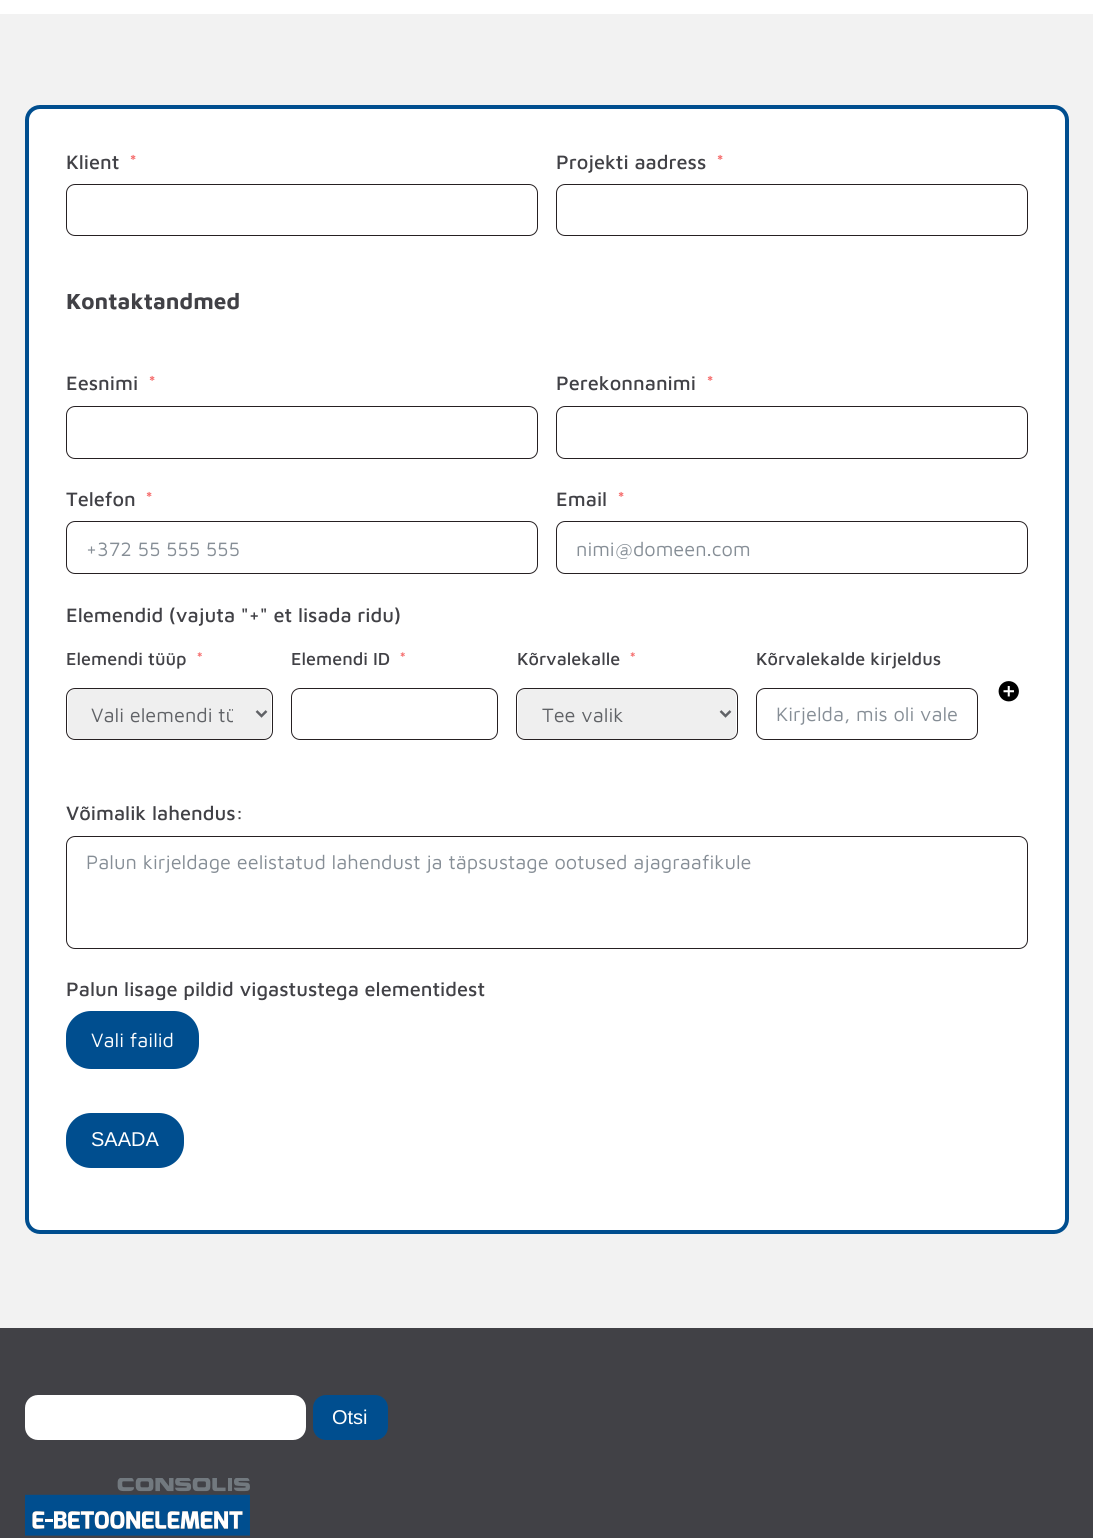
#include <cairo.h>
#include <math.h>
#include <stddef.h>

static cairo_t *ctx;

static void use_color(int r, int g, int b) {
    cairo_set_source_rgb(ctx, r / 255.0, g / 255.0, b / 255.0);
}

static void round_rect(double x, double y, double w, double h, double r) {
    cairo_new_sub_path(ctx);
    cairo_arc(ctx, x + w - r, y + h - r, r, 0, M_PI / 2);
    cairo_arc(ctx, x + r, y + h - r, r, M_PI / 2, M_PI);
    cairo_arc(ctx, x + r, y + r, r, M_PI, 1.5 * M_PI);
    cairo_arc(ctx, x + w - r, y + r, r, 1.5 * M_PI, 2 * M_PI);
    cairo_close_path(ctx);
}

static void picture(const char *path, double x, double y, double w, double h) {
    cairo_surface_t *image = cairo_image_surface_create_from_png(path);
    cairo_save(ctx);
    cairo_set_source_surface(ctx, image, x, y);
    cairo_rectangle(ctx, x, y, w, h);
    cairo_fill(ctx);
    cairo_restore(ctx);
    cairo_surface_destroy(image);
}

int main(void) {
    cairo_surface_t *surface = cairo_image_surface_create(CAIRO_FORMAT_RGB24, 1093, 1538);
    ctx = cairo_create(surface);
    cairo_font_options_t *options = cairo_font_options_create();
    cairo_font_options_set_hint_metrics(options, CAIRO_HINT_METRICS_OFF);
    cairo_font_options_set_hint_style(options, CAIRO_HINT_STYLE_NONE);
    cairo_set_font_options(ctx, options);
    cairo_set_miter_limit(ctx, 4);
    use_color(255, 255, 255);
    cairo_paint(ctx);
    use_color(242, 242, 242);
    cairo_rectangle(ctx, 0, 14, 1093, 1314);
    cairo_fill(ctx);
    use_color(255, 255, 255);
    round_rect(27, 107, 1040, 1125, 13);
    cairo_fill_preserve(ctx);
    use_color(0, 78, 143);
    cairo_set_line_width(ctx, 4);
    cairo_stroke(ctx);
    cairo_select_font_face(ctx, "Maven Pro Medium", CAIRO_FONT_SLANT_NORMAL, CAIRO_FONT_WEIGHT_NORMAL);
    cairo_set_font_size(ctx, 20);
    use_color(65, 65, 70);
    cairo_move_to(ctx, 66, 169);
    cairo_show_text(ctx, "Klient");
    use_color(245, 108, 108);
    cairo_move_to(ctx, 129, 169);
    cairo_show_text(ctx, "*");
    round_rect(66.5, 184.5, 471, 51, 8.5);
    use_color(38, 32, 34);
    cairo_set_line_width(ctx, 1);
    cairo_stroke(ctx);
    use_color(65, 65, 70);
    cairo_move_to(ctx, 556, 169);
    cairo_show_text(ctx, "Projekti aadress");
    use_color(245, 108, 108);
    cairo_move_to(ctx, 716, 169);
    cairo_show_text(ctx, "*");
    round_rect(556.5, 184.5, 471, 51, 8.5);
    use_color(38, 32, 34);
    cairo_stroke(ctx);
    cairo_select_font_face(ctx, "Maven Pro", CAIRO_FONT_SLANT_NORMAL, CAIRO_FONT_WEIGHT_BOLD);
    cairo_set_font_size(ctx, 22.5);
    use_color(65, 65, 70);
    cairo_move_to(ctx, 66, 309);
    cairo_show_text(ctx, "Kontaktandmed");
    cairo_select_font_face(ctx, "Maven Pro Medium", CAIRO_FONT_SLANT_NORMAL, CAIRO_FONT_WEIGHT_NORMAL);
    cairo_set_font_size(ctx, 20);
    cairo_move_to(ctx, 66, 390);
    cairo_show_text(ctx, "Eesnimi");
    use_color(245, 108, 108);
    cairo_move_to(ctx, 148, 390);
    cairo_show_text(ctx, "*");
    round_rect(66.5, 406.5, 471, 52, 8.5);
    use_color(38, 32, 34);
    cairo_stroke(ctx);
    use_color(65, 65, 70);
    cairo_move_to(ctx, 556, 390);
    cairo_show_text(ctx, "Perekonnanimi");
    use_color(245, 108, 108);
    cairo_move_to(ctx, 706, 390);
    cairo_show_text(ctx, "*");
    round_rect(556.5, 406.5, 471, 52, 8.5);
    use_color(38, 32, 34);
    cairo_stroke(ctx);
    use_color(65, 65, 70);
    cairo_move_to(ctx, 66, 506);
    cairo_show_text(ctx, "Telefon");
    use_color(245, 108, 108);
    cairo_move_to(ctx, 145, 506);
    cairo_show_text(ctx, "*");
    round_rect(66.5, 521.5, 471, 52, 8.5);
    use_color(38, 32, 34);
    cairo_stroke(ctx);
    cairo_select_font_face(ctx, "Maven Pro", CAIRO_FONT_SLANT_NORMAL, CAIRO_FONT_WEIGHT_NORMAL);
    use_color(134, 142, 150);
    cairo_move_to(ctx, 86, 556);
    cairo_show_text(ctx, "+372 55 555 555");
    cairo_select_font_face(ctx, "Maven Pro Medium", CAIRO_FONT_SLANT_NORMAL, CAIRO_FONT_WEIGHT_NORMAL);
    use_color(65, 65, 70);
    cairo_move_to(ctx, 556, 506);
    cairo_show_text(ctx, "Email");
    use_color(245, 108, 108);
    cairo_move_to(ctx, 617, 506);
    cairo_show_text(ctx, "*");
    round_rect(556.5, 521.5, 471, 52, 8.5);
    use_color(38, 32, 34);
    cairo_stroke(ctx);
    cairo_select_font_face(ctx, "Maven Pro", CAIRO_FONT_SLANT_NORMAL, CAIRO_FONT_WEIGHT_NORMAL);
    use_color(134, 142, 150);
    cairo_move_to(ctx, 576, 556);
    cairo_show_text(ctx, "nimi@domeen.com");
    cairo_select_font_face(ctx, "Maven Pro Medium", CAIRO_FONT_SLANT_NORMAL, CAIRO_FONT_WEIGHT_NORMAL);
    use_color(65, 65, 70);
    cairo_move_to(ctx, 66, 622);
    cairo_show_text(ctx, "Elemendid (vajuta \"+\" et lisada ridu)");
    cairo_set_font_size(ctx, 18);
    cairo_move_to(ctx, 66, 665);
    cairo_show_text(ctx, "Elemendi tüüp");
    use_color(245, 108, 108);
    cairo_move_to(ctx, 196, 665);
    cairo_show_text(ctx, "*");
    use_color(65, 65, 70);
    cairo_move_to(ctx, 291, 665);
    cairo_show_text(ctx, "Elemendi ID");
    use_color(245, 108, 108);
    cairo_move_to(ctx, 399, 665);
    cairo_show_text(ctx, "*");
    use_color(65, 65, 70);
    cairo_move_to(ctx, 517, 665);
    cairo_show_text(ctx, "Kõrvalekalle");
    use_color(245, 108, 108);
    cairo_move_to(ctx, 629, 665);
    cairo_show_text(ctx, "*");
    use_color(65, 65, 70);
    cairo_move_to(ctx, 756, 665);
    cairo_show_text(ctx, "Kõrvalekalde kirjeldus");
    use_color(239, 239, 239);
    round_rect(68, 689, 203, 50, 8);
    cairo_fill(ctx);
    round_rect(66.5, 688.5, 206, 51, 8.5);
    use_color(38, 32, 34);
    cairo_stroke(ctx);
    cairo_new_path(ctx);
    cairo_move_to(ctx, 256.5, 711);
    cairo_line_to(ctx, 261.5, 716);
    cairo_line_to(ctx, 266.5, 711);
    use_color(96, 98, 102);
    cairo_set_line_width(ctx, 2.5);
    cairo_stroke(ctx);
    cairo_save(ctx);
    cairo_rectangle(ctx, 91, 703, 142, 25);
    cairo_clip(ctx);
    cairo_select_font_face(ctx, "Maven Pro", CAIRO_FONT_SLANT_NORMAL, CAIRO_FONT_WEIGHT_NORMAL);
    cairo_set_font_size(ctx, 20);
    cairo_move_to(ctx, 91, 722);
    cairo_show_text(ctx, "Vali elemendi tü");
    cairo_restore(ctx);
    round_rect(291.5, 688.5, 206, 51, 8.5);
    use_color(38, 32, 34);
    cairo_set_line_width(ctx, 1);
    cairo_stroke(ctx);
    use_color(239, 239, 239);
    round_rect(518, 689, 218, 50, 8);
    cairo_fill(ctx);
    round_rect(516.5, 688.5, 221, 51, 8.5);
    use_color(38, 32, 34);
    cairo_stroke(ctx);
    cairo_new_path(ctx);
    cairo_move_to(ctx, 720.5, 711);
    cairo_line_to(ctx, 725.5, 716);
    cairo_line_to(ctx, 730.5, 711);
    use_color(96, 98, 102);
    cairo_set_line_width(ctx, 2.5);
    cairo_stroke(ctx);
    cairo_select_font_face(ctx, "Maven Pro", CAIRO_FONT_SLANT_NORMAL, CAIRO_FONT_WEIGHT_NORMAL);
    cairo_set_font_size(ctx, 20);
    cairo_move_to(ctx, 542, 722);
    cairo_show_text(ctx, "Tee valik");
    round_rect(756.5, 688.5, 221, 51, 8.5);
    use_color(38, 32, 34);
    cairo_set_line_width(ctx, 1);
    cairo_stroke(ctx);
    use_color(134, 142, 150);
    cairo_move_to(ctx, 776, 721);
    cairo_show_text(ctx, "Kirjelda, mis oli vale");
    picture("img1.png", 998, 681, 21, 21);
    cairo_select_font_face(ctx, "Maven Pro Medium", CAIRO_FONT_SLANT_NORMAL, CAIRO_FONT_WEIGHT_NORMAL);
    use_color(65, 65, 70);
    cairo_move_to(ctx, 66, 820);
    cairo_show_text(ctx, "Võimalik lahendus:");
    round_rect(66.5, 836.5, 961, 112, 8.5);
    use_color(38, 32, 34);
    cairo_stroke(ctx);
    cairo_select_font_face(ctx, "Maven Pro", CAIRO_FONT_SLANT_NORMAL, CAIRO_FONT_WEIGHT_NORMAL);
    use_color(134, 142, 150);
    cairo_move_to(ctx, 86, 869);
    cairo_show_text(ctx, "Palun kirjeldage eelistatud lahendust ja täpsustage ootused ajagraafikule");
    cairo_select_font_face(ctx, "Maven Pro Medium", CAIRO_FONT_SLANT_NORMAL, CAIRO_FONT_WEIGHT_NORMAL);
    use_color(65, 65, 70);
    cairo_move_to(ctx, 66, 996);
    cairo_show_text(ctx, "Palun lisage pildid vigastustega elementidest");
    use_color(0, 78, 143);
    round_rect(66, 1011, 133, 58, 25);
    cairo_fill(ctx);
    cairo_select_font_face(ctx, "Maven Pro", CAIRO_FONT_SLANT_NORMAL, CAIRO_FONT_WEIGHT_NORMAL);
    use_color(255, 255, 255);
    cairo_move_to(ctx, 91, 1047);
    cairo_show_text(ctx, "Vali failid");
    use_color(0, 78, 143);
    round_rect(66, 1113, 118, 55, 25);
    cairo_fill(ctx);
    cairo_select_font_face(ctx, "Liberation Sans", CAIRO_FONT_SLANT_NORMAL, CAIRO_FONT_WEIGHT_NORMAL);
    use_color(255, 255, 255);
    cairo_move_to(ctx, 91, 1146);
    cairo_show_text(ctx, "SAADA");
    use_color(65, 65, 70);
    cairo_rectangle(ctx, 0, 1328, 1093, 210);
    cairo_fill(ctx);
    use_color(255, 255, 255);
    round_rect(25, 1395, 281, 45, 13);
    cairo_fill(ctx);
    use_color(0, 78, 143);
    round_rect(313, 1395, 75, 45, 13);
    cairo_fill(ctx);
    use_color(255, 255, 255);
    cairo_move_to(ctx, 332, 1424);
    cairo_show_text(ctx, "Otsi");
    picture("img2.png", 25, 1478, 225, 58);
    cairo_surface_write_to_png(surface, "result.png");
    cairo_font_options_destroy(options);
    cairo_destroy(ctx);
    cairo_surface_destroy(surface);
    return 0;
}
